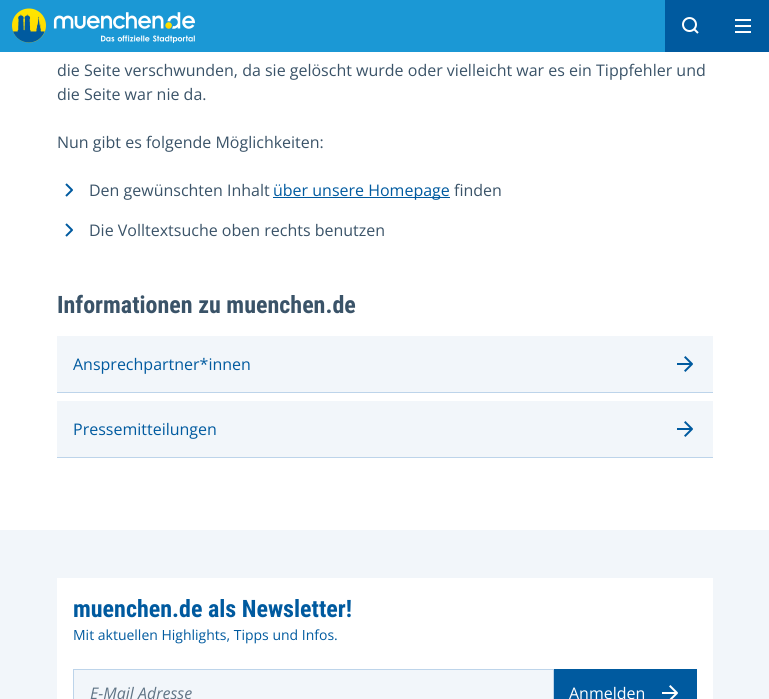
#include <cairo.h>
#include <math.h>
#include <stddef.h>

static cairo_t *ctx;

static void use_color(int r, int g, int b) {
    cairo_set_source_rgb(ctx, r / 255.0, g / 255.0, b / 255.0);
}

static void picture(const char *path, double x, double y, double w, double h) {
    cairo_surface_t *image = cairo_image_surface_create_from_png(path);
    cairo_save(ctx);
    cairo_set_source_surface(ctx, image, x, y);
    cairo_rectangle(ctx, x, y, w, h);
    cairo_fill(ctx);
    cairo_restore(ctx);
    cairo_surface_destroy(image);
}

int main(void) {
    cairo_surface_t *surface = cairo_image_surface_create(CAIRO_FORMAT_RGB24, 769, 699);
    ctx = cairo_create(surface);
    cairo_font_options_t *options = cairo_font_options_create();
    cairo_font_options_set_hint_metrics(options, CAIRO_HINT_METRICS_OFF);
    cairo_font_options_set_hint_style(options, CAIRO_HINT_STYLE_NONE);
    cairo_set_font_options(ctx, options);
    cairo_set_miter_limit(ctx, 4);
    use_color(255, 255, 255);
    cairo_paint(ctx);
    use_color(27, 152, 213);
    cairo_rectangle(ctx, 0, 0, 665, 52);
    cairo_fill(ctx);
    picture("img1.png", 12, 8, 183, 35);
    use_color(0, 90, 159);
    cairo_rectangle(ctx, 665, 0, 104, 52);
    cairo_fill(ctx);
    picture("img2.png", 682, 17, 17, 17);
    picture("img3.png", 735, 19, 16, 14);
    cairo_select_font_face(ctx, "Open Sans", CAIRO_FONT_SLANT_NORMAL, CAIRO_FONT_WEIGHT_NORMAL);
    cairo_set_font_size(ctx, 16);
    use_color(58, 83, 104);
    cairo_move_to(ctx, 57, 76);
    cairo_show_text(ctx, "die Seite verschwunden, da sie gelöscht wurde oder vielleicht war es ein Tippfehler und");
    cairo_move_to(ctx, 57, 100);
    cairo_show_text(ctx, "die Seite war nie da.");
    cairo_move_to(ctx, 57, 148);
    cairo_show_text(ctx, "Nun gibt es folgende Möglichkeiten:");
    picture("img4.png", 65, 183, 8, 14);
    cairo_move_to(ctx, 89, 196);
    cairo_show_text(ctx, "Den gewünschten Inhalt");
    use_color(0, 90, 159);
    cairo_rectangle(ctx, 273, 197, 177, 1);
    cairo_fill(ctx);
    cairo_move_to(ctx, 273, 196);
    cairo_show_text(ctx, "über unsere Homepage");
    use_color(58, 83, 104);
    cairo_move_to(ctx, 454, 196);
    cairo_show_text(ctx, "finden");
    picture("img4.png", 65, 223, 8, 14);
    cairo_move_to(ctx, 89, 236);
    cairo_show_text(ctx, "Die Volltextsuche oben rechts benutzen");
    cairo_select_font_face(ctx, "Roboto Condensed", CAIRO_FONT_SLANT_NORMAL, CAIRO_FONT_WEIGHT_BOLD);
    cairo_set_font_size(ctx, 24);
    cairo_move_to(ctx, 57, 313);
    cairo_show_text(ctx, "Informationen zu muenchen.de");
    use_color(242, 246, 250);
    cairo_rectangle(ctx, 57, 336, 656, 56);
    cairo_fill(ctx);
    use_color(189, 212, 234);
    cairo_rectangle(ctx, 57, 392, 656, 1);
    cairo_fill(ctx);
    cairo_select_font_face(ctx, "Open Sans", CAIRO_FONT_SLANT_NORMAL, CAIRO_FONT_WEIGHT_NORMAL);
    cairo_set_font_size(ctx, 16);
    use_color(0, 90, 159);
    cairo_move_to(ctx, 73, 370);
    cairo_show_text(ctx, "Ansprechpartner*innen");
    picture("img5.png", 677, 356, 16, 16);
    use_color(242, 246, 250);
    cairo_rectangle(ctx, 57, 401, 656, 56);
    cairo_fill(ctx);
    use_color(189, 212, 234);
    cairo_rectangle(ctx, 57, 457, 656, 1);
    cairo_fill(ctx);
    use_color(0, 90, 159);
    cairo_move_to(ctx, 73, 435);
    cairo_show_text(ctx, "Pressemitteilungen");
    picture("img5.png", 677, 421, 16, 16);
    use_color(242, 246, 250);
    cairo_rectangle(ctx, 0, 530, 769, 169);
    cairo_fill(ctx);
    use_color(255, 255, 255);
    cairo_rectangle(ctx, 57, 578, 656, 121);
    cairo_fill(ctx);
    cairo_select_font_face(ctx, "Roboto Condensed", CAIRO_FONT_SLANT_NORMAL, CAIRO_FONT_WEIGHT_BOLD);
    cairo_set_font_size(ctx, 24);
    use_color(0, 90, 159);
    cairo_move_to(ctx, 73, 617);
    cairo_show_text(ctx, "muenchen.de als Newsletter!");
    cairo_select_font_face(ctx, "Open Sans", CAIRO_FONT_SLANT_NORMAL, CAIRO_FONT_WEIGHT_NORMAL);
    cairo_set_font_size(ctx, 14);
    cairo_move_to(ctx, 73, 640);
    cairo_show_text(ctx, "Mit aktuellen Highlights, Tipps und Infos.");
    use_color(242, 246, 250);
    cairo_rectangle(ctx, 73.5, 669.5, 480, 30);
    cairo_fill_preserve(ctx);
    use_color(189, 212, 234);
    cairo_set_line_width(ctx, 1);
    cairo_stroke(ctx);
    cairo_select_font_face(ctx, "Open Sans", CAIRO_FONT_SLANT_ITALIC, CAIRO_FONT_WEIGHT_NORMAL);
    cairo_set_font_size(ctx, 16);
    use_color(97, 117, 134);
    cairo_move_to(ctx, 90, 699);
    cairo_show_text(ctx, "E-Mail Adresse");
    use_color(0, 90, 159);
    cairo_rectangle(ctx, 554, 669, 143, 30);
    cairo_fill(ctx);
    cairo_select_font_face(ctx, "Open Sans", CAIRO_FONT_SLANT_NORMAL, CAIRO_FONT_WEIGHT_NORMAL);
    use_color(255, 255, 255);
    cairo_move_to(ctx, 569, 699);
    cairo_show_text(ctx, "Anmelden");
    picture("img6.png", 662, 685, 16, 14);
    cairo_surface_write_to_png(surface, "result.png");
    cairo_font_options_destroy(options);
    cairo_destroy(ctx);
    cairo_surface_destroy(surface);
    return 0;
}
